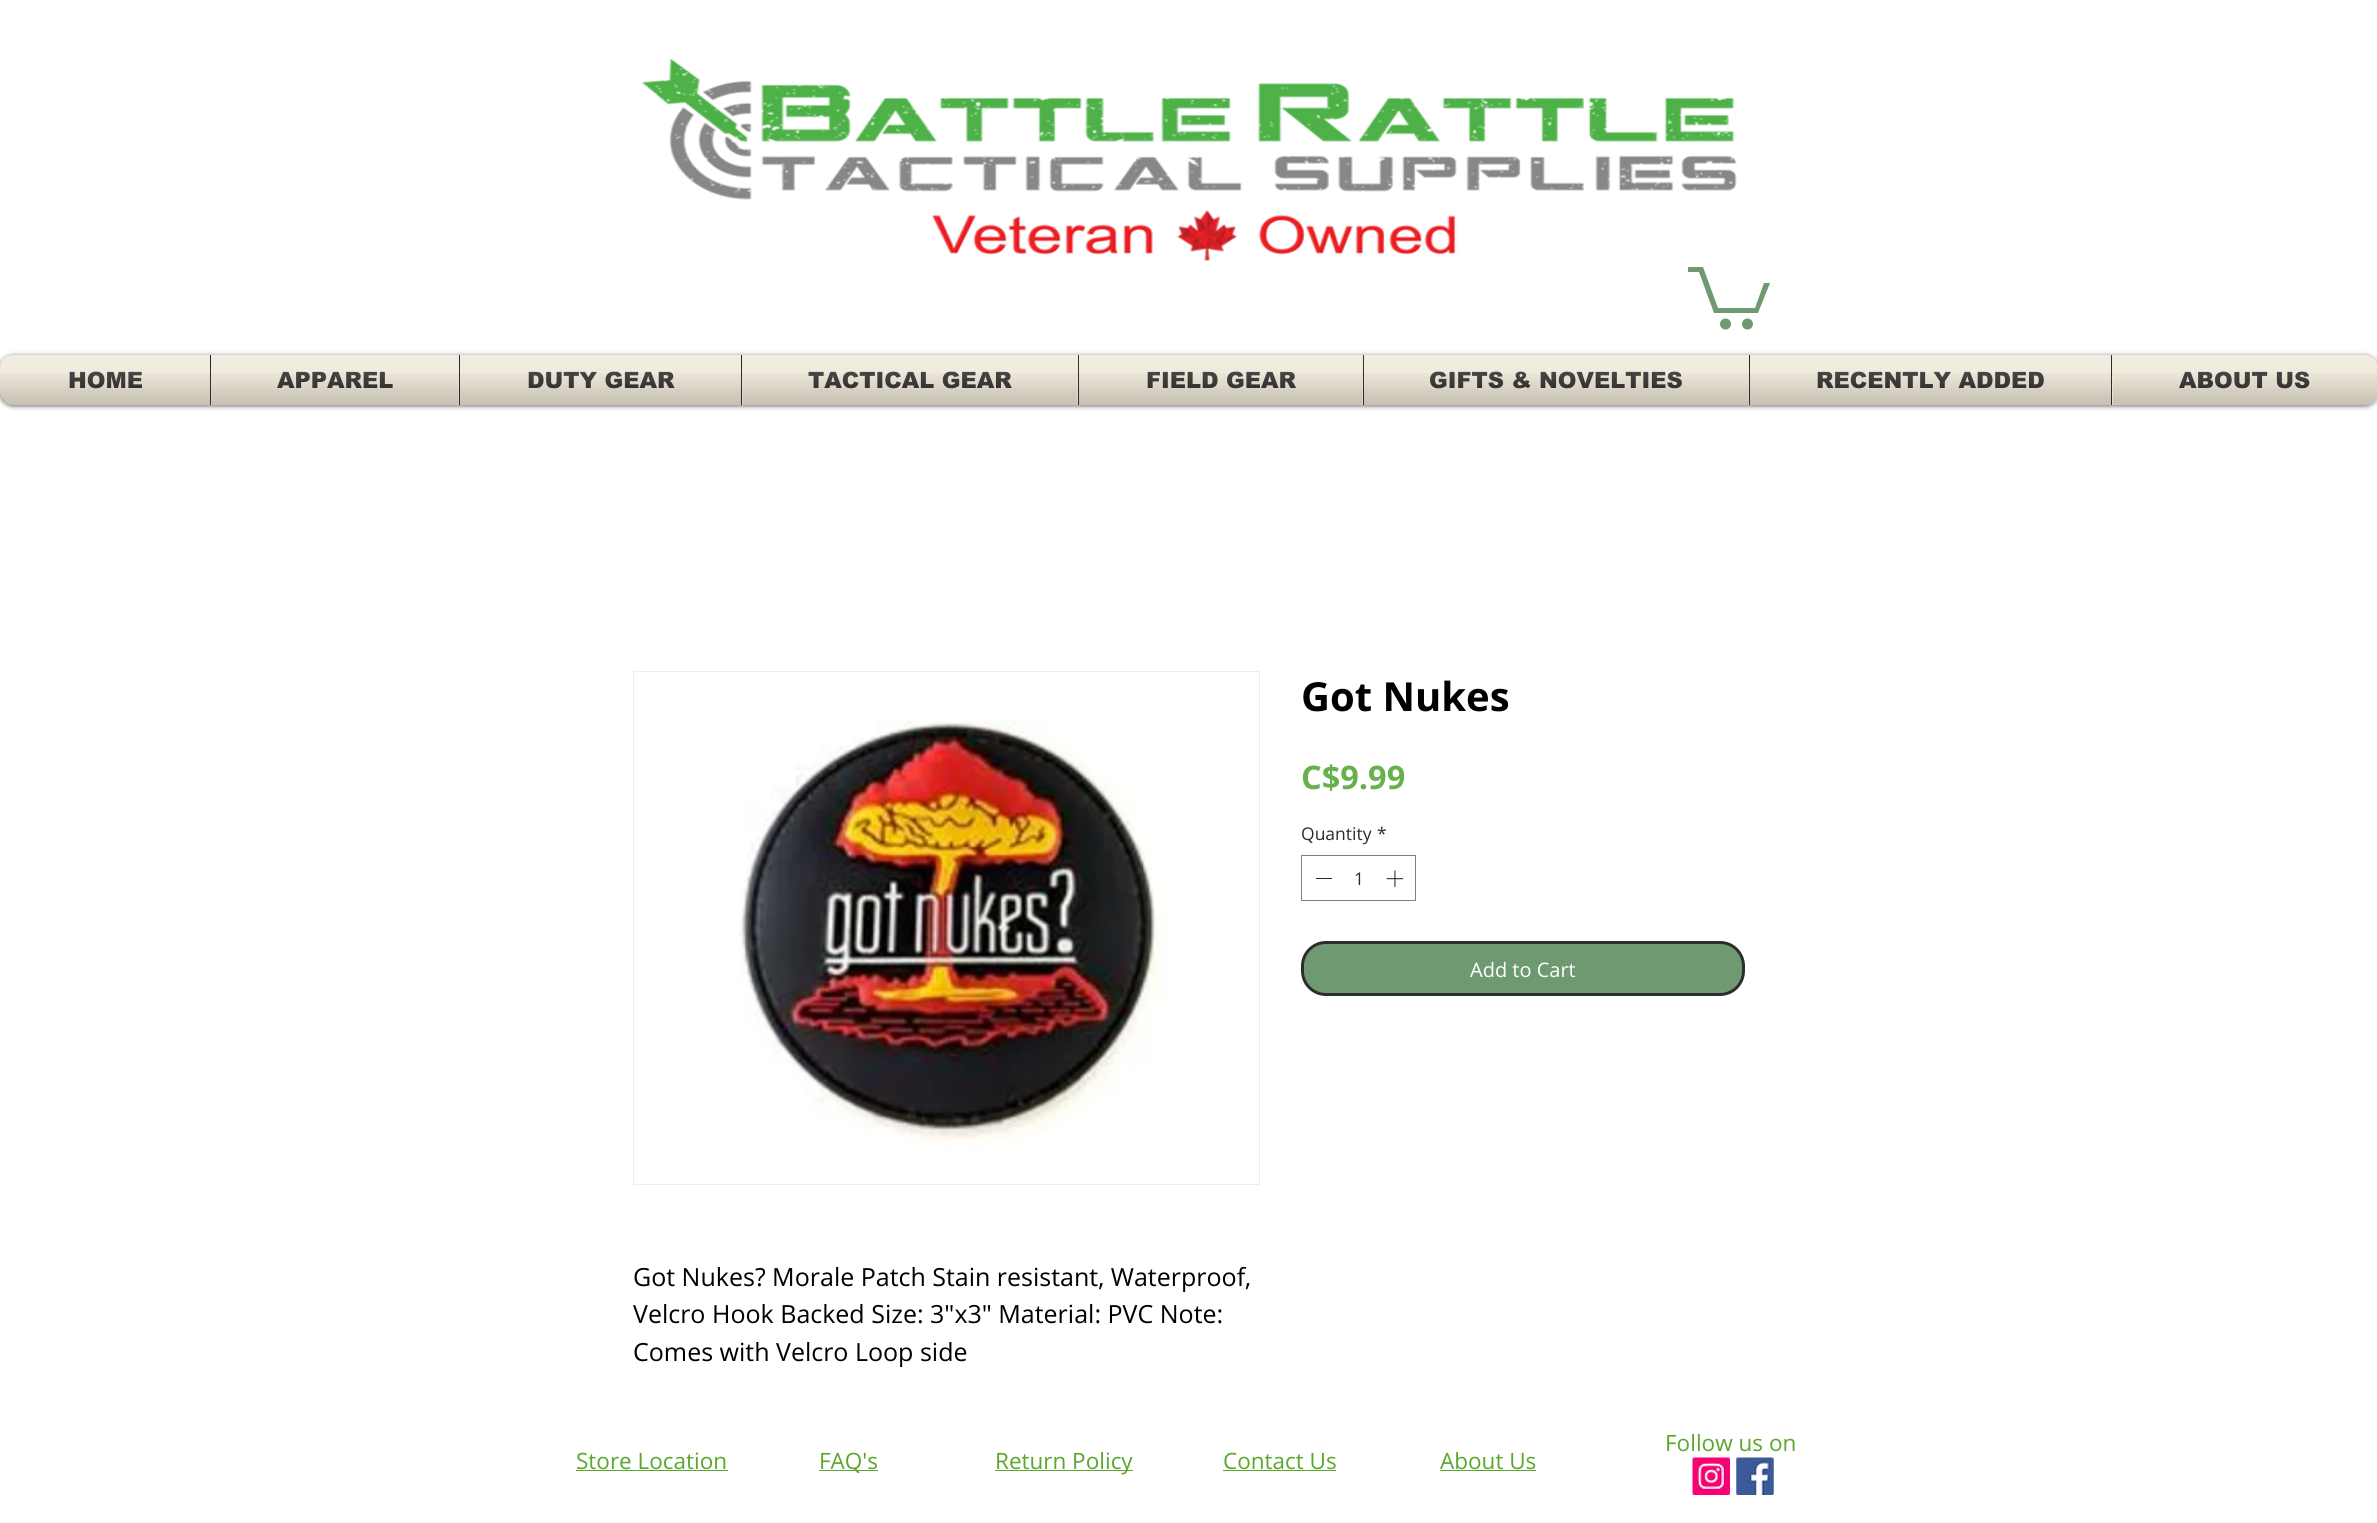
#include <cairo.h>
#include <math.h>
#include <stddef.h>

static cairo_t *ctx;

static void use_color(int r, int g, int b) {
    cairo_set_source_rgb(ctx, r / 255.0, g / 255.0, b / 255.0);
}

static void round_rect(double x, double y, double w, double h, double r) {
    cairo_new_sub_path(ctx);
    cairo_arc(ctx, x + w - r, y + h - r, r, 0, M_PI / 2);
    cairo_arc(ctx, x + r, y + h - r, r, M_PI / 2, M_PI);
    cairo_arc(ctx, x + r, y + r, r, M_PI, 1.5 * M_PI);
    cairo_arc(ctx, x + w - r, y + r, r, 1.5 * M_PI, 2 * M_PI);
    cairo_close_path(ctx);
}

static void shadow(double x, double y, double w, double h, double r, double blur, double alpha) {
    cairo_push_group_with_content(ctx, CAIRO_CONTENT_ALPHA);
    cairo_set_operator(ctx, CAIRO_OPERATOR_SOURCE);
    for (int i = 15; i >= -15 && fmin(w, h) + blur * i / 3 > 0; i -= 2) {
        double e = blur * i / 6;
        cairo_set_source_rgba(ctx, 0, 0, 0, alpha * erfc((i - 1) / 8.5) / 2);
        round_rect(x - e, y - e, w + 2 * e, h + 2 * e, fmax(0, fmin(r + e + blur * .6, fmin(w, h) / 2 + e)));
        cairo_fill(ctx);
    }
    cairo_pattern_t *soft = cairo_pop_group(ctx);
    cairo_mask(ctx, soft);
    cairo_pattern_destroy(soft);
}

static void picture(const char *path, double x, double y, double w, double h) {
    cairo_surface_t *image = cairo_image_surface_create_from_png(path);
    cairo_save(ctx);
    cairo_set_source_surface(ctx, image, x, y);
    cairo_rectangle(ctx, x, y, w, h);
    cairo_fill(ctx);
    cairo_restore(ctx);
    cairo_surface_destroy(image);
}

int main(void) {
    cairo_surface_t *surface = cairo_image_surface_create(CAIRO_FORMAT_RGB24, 2377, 1523);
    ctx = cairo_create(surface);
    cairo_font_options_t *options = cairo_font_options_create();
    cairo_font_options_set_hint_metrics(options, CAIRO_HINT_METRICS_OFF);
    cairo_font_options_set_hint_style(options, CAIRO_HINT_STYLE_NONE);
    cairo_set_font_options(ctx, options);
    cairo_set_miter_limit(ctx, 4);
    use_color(255, 255, 255);
    cairo_paint(ctx);
    picture("img1.png", 641, 58, 1096, 203);
    use_color(111, 153, 113);
    cairo_new_path(ctx);
    cairo_move_to(ctx, 1770, 283);
    cairo_line_to(ctx, 1758, 313);
    cairo_line_to(ctx, 1714, 313);
    cairo_line_to(ctx, 1699, 272);
    cairo_line_to(ctx, 1688, 272);
    cairo_line_to(ctx, 1688, 267);
    cairo_line_to(ctx, 1703, 267);
    cairo_line_to(ctx, 1718, 308);
    cairo_line_to(ctx, 1755, 308);
    cairo_line_to(ctx, 1764, 283);
    cairo_fill(ctx);
    cairo_arc(ctx, 1747.5, 324, 5.5, 0, 2 * M_PI);
    cairo_fill(ctx);
    cairo_arc(ctx, 1725.5, 324, 5.5, 0, 2 * M_PI);
    cairo_fill(ctx);
    use_color(0, 0, 0);
    shadow(0, 356, 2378, 50, 13, 2.5, 0.6);
    picture("img2.png", 0, 355, 2377, 13);
    picture("img3.png", 0, 392, 2377, 13);
    use_color(238, 232, 216);
    cairo_new_path(ctx);
    cairo_move_to(ctx, 13, 355);
    cairo_line_to(ctx, 210, 355);
    cairo_line_to(ctx, 210, 405);
    cairo_line_to(ctx, 13, 405);
    cairo_curve_to(ctx, 6, 405, 0, 399, 0, 392);
    cairo_line_to(ctx, 0, 368);
    cairo_curve_to(ctx, 0, 361, 6, 355, 13, 355);
    cairo_close_path(ctx);
    cairo_fill(ctx);
    cairo_select_font_face(ctx, "arial Black", CAIRO_FONT_SLANT_NORMAL, CAIRO_FONT_WEIGHT_NORMAL);
    cairo_set_font_size(ctx, 22.5);
    use_color(44, 44, 43);
    cairo_move_to(ctx, 68, 388);
    cairo_show_text(ctx, "HOME");
    picture("img4.png", 0, 355, 210, 34);
    picture("img5.png", 0, 373, 210, 32);
    use_color(238, 232, 216);
    cairo_rectangle(ctx, 211, 355, 248, 50);
    cairo_fill(ctx);
    use_color(44, 44, 43);
    cairo_rectangle(ctx, 210, 355, 1, 50);
    cairo_fill(ctx);
    cairo_move_to(ctx, 277, 388);
    cairo_show_text(ctx, "APPAREL");
    picture("img6.png", 211, 355, 248, 33);
    picture("img7.png", 211, 373, 248, 32);
    use_color(238, 232, 216);
    cairo_rectangle(ctx, 460, 355, 281, 50);
    cairo_fill(ctx);
    use_color(44, 44, 43);
    cairo_rectangle(ctx, 459, 355, 1, 50);
    cairo_fill(ctx);
    cairo_move_to(ctx, 527, 388);
    cairo_show_text(ctx, "DUTY GEAR");
    picture("img8.png", 460, 355, 281, 34);
    picture("img9.png", 460, 373, 281, 32);
    use_color(238, 232, 216);
    cairo_rectangle(ctx, 742, 355, 336, 50);
    cairo_fill(ctx);
    use_color(44, 44, 43);
    cairo_rectangle(ctx, 741, 355, 1, 50);
    cairo_fill(ctx);
    cairo_move_to(ctx, 808, 388);
    cairo_show_text(ctx, "TACTICAL GEAR");
    picture("img10.png", 743, 355, 334, 34);
    picture("img11.png", 742, 373, 336, 32);
    use_color(238, 232, 216);
    cairo_rectangle(ctx, 1079, 355, 284, 50);
    cairo_fill(ctx);
    use_color(44, 44, 43);
    cairo_rectangle(ctx, 1078, 355, 1, 50);
    cairo_fill(ctx);
    cairo_move_to(ctx, 1146, 388);
    cairo_show_text(ctx, "FIELD GEAR");
    picture("img12.png", 1078, 355, 284, 34);
    picture("img13.png", 1079, 373, 284, 32);
    use_color(238, 232, 216);
    cairo_rectangle(ctx, 1364, 355, 385, 50);
    cairo_fill(ctx);
    use_color(44, 44, 43);
    cairo_rectangle(ctx, 1363, 355, 1, 50);
    cairo_fill(ctx);
    cairo_move_to(ctx, 1429, 388);
    cairo_show_text(ctx, "GIFTS & NOVELTIES");
    picture("img14.png", 1363, 355, 386, 34);
    picture("img15.png", 1364, 373, 385, 32);
    use_color(238, 232, 216);
    cairo_rectangle(ctx, 1750, 355, 361, 50);
    cairo_fill(ctx);
    use_color(44, 44, 43);
    cairo_rectangle(ctx, 1749, 355, 1, 50);
    cairo_fill(ctx);
    cairo_move_to(ctx, 1816, 388);
    cairo_show_text(ctx, "RECENTLY ADDED");
    picture("img16.png", 1750, 355, 361, 34);
    picture("img17.png", 1750, 373, 361, 32);
    use_color(238, 232, 216);
    cairo_new_path(ctx);
    cairo_move_to(ctx, 2111, 355);
    cairo_line_to(ctx, 2365, 355);
    cairo_curve_to(ctx, 2372, 355, 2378, 361, 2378, 368);
    cairo_line_to(ctx, 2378, 392);
    cairo_curve_to(ctx, 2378, 399, 2372, 405, 2365, 405);
    cairo_line_to(ctx, 2111, 405);
    cairo_close_path(ctx);
    cairo_fill(ctx);
    use_color(44, 44, 43);
    cairo_rectangle(ctx, 2111, 355, 1, 50);
    cairo_fill(ctx);
    cairo_move_to(ctx, 2179, 388);
    cairo_show_text(ctx, "ABOUT US");
    picture("img18.png", 2113, 355, 264, 34);
    picture("img19.png", 2112, 373, 265, 32);
    cairo_select_font_face(ctx, "Open Sans", CAIRO_FONT_SLANT_NORMAL, CAIRO_FONT_WEIGHT_BOLD);
    cairo_set_font_size(ctx, 40);
    use_color(0, 0, 0);
    cairo_move_to(ctx, 1301, 711);
    cairo_show_text(ctx, "Got Nukes");
    cairo_set_font_size(ctx, 32.5);
    use_color(104, 176, 77);
    cairo_move_to(ctx, 1301, 789);
    cairo_show_text(ctx, "C$9.99");
    cairo_select_font_face(ctx, "Open Sans", CAIRO_FONT_SLANT_NORMAL, CAIRO_FONT_WEIGHT_NORMAL);
    cairo_set_font_size(ctx, 17.5);
    use_color(44, 44, 43);
    cairo_move_to(ctx, 1301, 840);
    cairo_show_text(ctx, "Quantity");
    cairo_move_to(ctx, 1377, 840);
    cairo_show_text(ctx, "*");
    cairo_rectangle(ctx, 1301.5, 855.5, 114, 45);
    use_color(128, 128, 128);
    cairo_set_line_width(ctx, 1);
    cairo_stroke(ctx);
    use_color(47, 46, 46);
    cairo_rectangle(ctx, 1316, 878, 16, 1);
    cairo_fill(ctx);
    use_color(44, 44, 43);
    cairo_move_to(ctx, 1354, 885);
    cairo_show_text(ctx, "1");
    picture("img20.png", 1386, 870, 18, 17);
    use_color(111, 153, 113);
    round_rect(1302.5, 942.5, 441, 52, 23.5);
    cairo_fill_preserve(ctx);
    use_color(44, 44, 43);
    cairo_set_line_width(ctx, 3);
    cairo_stroke(ctx);
    cairo_set_font_size(ctx, 20);
    use_color(255, 255, 255);
    cairo_move_to(ctx, 1470, 977);
    cairo_show_text(ctx, "Add to Cart");
    cairo_rectangle(ctx, 633.5, 671.5, 626, 513);
    use_color(237, 237, 236);
    cairo_set_line_width(ctx, 1);
    cairo_stroke(ctx);
    picture("img21.png", 739, 720, 432, 429);
    cairo_set_font_size(ctx, 25);
    use_color(0, 0, 0);
    cairo_move_to(ctx, 633, 1286);
    cairo_show_text(ctx, "Got Nukes? Morale Patch Stain resistant, Waterproof,");
    cairo_move_to(ctx, 633, 1323);
    cairo_show_text(ctx, "Velcro Hook Backed Size: 3\"x3\" Material: PVC Note:");
    cairo_move_to(ctx, 633, 1361);
    cairo_show_text(ctx, "Comes with Velcro Loop side");
    cairo_set_font_size(ctx, 22.5);
    use_color(91, 166, 45);
    cairo_move_to(ctx, 1665, 1451);
    cairo_show_text(ctx, "Follow us on");
    cairo_move_to(ctx, 576, 1469);
    cairo_show_text(ctx, "Store Location");
    cairo_rectangle(ctx, 576, 1470, 152, 1);
    cairo_fill(ctx);
    cairo_rectangle(ctx, 819, 1470, 59, 1);
    cairo_fill(ctx);
    cairo_move_to(ctx, 819, 1469);
    cairo_show_text(ctx, "FAQ's");
    cairo_rectangle(ctx, 995, 1470, 138, 1);
    cairo_fill(ctx);
    cairo_move_to(ctx, 995, 1469);
    cairo_show_text(ctx, "Return Policy");
    cairo_move_to(ctx, 1223, 1469);
    cairo_show_text(ctx, "Contact Us");
    cairo_rectangle(ctx, 1223, 1470, 113, 1);
    cairo_fill(ctx);
    cairo_move_to(ctx, 1440, 1469);
    cairo_show_text(ctx, "About Us");
    cairo_rectangle(ctx, 1440, 1470, 96, 1);
    cairo_fill(ctx);
    picture("img22.png", 1692, 1457, 38, 38);
    picture("img23.png", 1736, 1457, 38, 38);
    cairo_surface_write_to_png(surface, "result.png");
    cairo_font_options_destroy(options);
    cairo_destroy(ctx);
    cairo_surface_destroy(surface);
    return 0;
}
